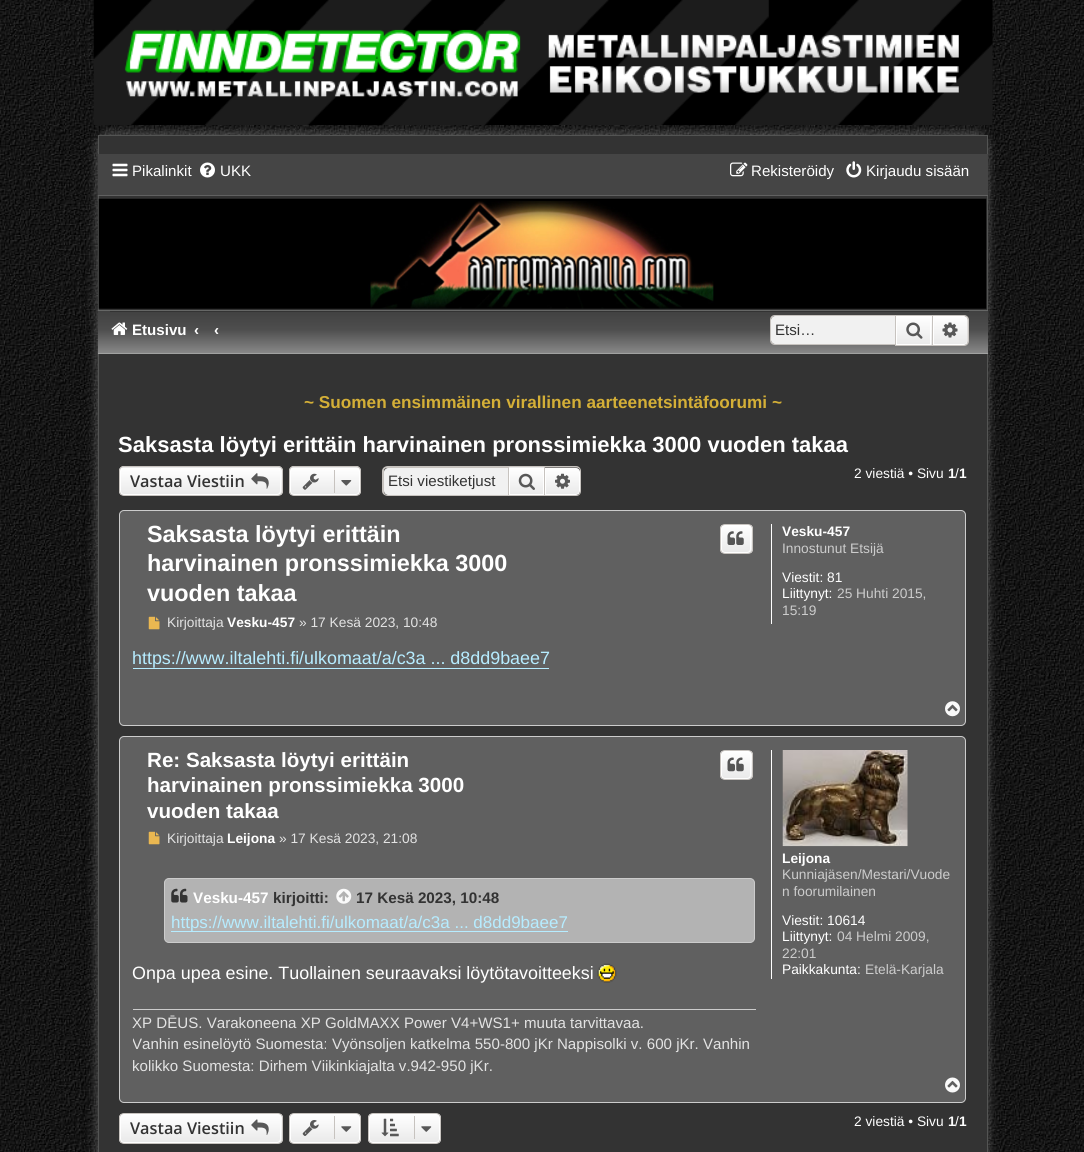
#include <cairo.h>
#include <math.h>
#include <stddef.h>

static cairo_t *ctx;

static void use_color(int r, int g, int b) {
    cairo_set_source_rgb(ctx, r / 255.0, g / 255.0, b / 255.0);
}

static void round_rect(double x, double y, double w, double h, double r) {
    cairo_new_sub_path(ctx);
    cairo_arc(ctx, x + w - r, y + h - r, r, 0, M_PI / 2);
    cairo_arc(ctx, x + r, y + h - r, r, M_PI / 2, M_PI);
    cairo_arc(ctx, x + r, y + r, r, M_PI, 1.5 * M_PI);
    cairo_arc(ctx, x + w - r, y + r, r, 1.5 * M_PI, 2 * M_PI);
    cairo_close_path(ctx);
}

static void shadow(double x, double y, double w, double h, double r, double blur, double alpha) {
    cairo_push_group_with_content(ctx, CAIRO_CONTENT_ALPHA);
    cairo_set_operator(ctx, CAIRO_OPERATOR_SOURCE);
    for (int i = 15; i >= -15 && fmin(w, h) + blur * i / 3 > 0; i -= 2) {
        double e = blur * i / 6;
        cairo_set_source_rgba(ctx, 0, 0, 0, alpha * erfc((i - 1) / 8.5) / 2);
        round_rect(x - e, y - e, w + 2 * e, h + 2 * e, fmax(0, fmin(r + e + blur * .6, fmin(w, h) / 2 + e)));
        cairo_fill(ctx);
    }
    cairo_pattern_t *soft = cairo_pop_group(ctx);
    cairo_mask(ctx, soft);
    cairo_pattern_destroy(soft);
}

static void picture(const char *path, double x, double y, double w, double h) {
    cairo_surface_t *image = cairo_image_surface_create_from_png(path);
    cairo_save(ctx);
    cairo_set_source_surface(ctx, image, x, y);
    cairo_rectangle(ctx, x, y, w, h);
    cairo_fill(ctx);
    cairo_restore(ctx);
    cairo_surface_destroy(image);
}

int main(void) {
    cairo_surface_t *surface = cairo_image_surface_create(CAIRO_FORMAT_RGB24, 1084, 1152);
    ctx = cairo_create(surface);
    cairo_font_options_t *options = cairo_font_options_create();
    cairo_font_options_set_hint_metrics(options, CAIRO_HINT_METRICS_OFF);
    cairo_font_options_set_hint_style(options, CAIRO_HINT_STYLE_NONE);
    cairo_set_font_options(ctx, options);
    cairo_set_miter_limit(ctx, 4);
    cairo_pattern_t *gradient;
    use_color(255, 255, 255);
    cairo_paint(ctx);
    picture("img1.png", 0, 0, 1084, 1152);
    shadow(95, 131, 895, 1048, 15, 4, 0.2);
    picture("img2.png", 93, 0, 900, 125);
    use_color(51, 51, 51);
    cairo_rectangle(ctx, 98.5, 135.5, 889, 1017);
    cairo_fill_preserve(ctx);
    use_color(83, 84, 83);
    cairo_set_line_width(ctx, 1);
    cairo_stroke(ctx);
    use_color(69, 69, 69);
    cairo_rectangle(ctx, 98, 154, 890, 41);
    cairo_fill(ctx);
    picture("img3.png", 112, 163, 16, 14);
    cairo_select_font_face(ctx, "Liberation Sans", CAIRO_FONT_SLANT_NORMAL, CAIRO_FONT_WEIGHT_NORMAL);
    cairo_set_font_size(ctx, 15.1);
    use_color(255, 255, 255);
    cairo_move_to(ctx, 132, 176);
    cairo_show_text(ctx, "Pikalinkit");
    picture("img4.png", 200, 162, 15, 16);
    cairo_move_to(ctx, 220, 176);
    cairo_show_text(ctx, "UKK");
    picture("img5.png", 730, 162, 18, 15);
    cairo_move_to(ctx, 751, 176);
    cairo_show_text(ctx, "Rekisteröidy");
    picture("img6.png", 846, 161, 16, 17);
    cairo_move_to(ctx, 866, 176);
    cairo_show_text(ctx, "Kirjaudu sisään");
    use_color(97, 97, 97);
    cairo_rectangle(ctx, 98, 195, 890, 1);
    cairo_fill(ctx);
    picture("img7.png", 98, 198, 889, 111);
    gradient = cairo_pattern_create_linear(543, 311, 543, 375);
    cairo_pattern_add_color_stop_rgba(gradient, 0, 0.255, 0.255, 0.255, 1);
    cairo_pattern_add_color_stop_rgba(gradient, 0.29, 0.306, 0.306, 0.306, 1);
    cairo_pattern_add_color_stop_rgba(gradient, 0.65, 0.529, 0.529, 0.529, 1);
    cairo_pattern_add_color_stop_rgba(gradient, 1, 0.98, 0.98, 0.98, 1);
    cairo_set_source(ctx, gradient);
    cairo_pattern_destroy(gradient);
    cairo_rectangle(ctx, 98, 311, 890, 42);
    cairo_fill(ctx);
    use_color(102, 103, 102);
    cairo_rectangle(ctx, 98, 310, 890, 1);
    cairo_fill(ctx);
    use_color(161, 162, 161);
    cairo_rectangle(ctx, 98, 353, 890, 1);
    cairo_fill(ctx);
    use_color(51, 51, 51);
    cairo_rectangle(ctx, 110, 311, 859, 1);
    cairo_fill(ctx);
    picture("img8.png", 111, 322, 17, 13);
    cairo_select_font_face(ctx, "Liberation Sans", CAIRO_FONT_SLANT_NORMAL, CAIRO_FONT_WEIGHT_BOLD);
    use_color(255, 255, 255);
    cairo_move_to(ctx, 132, 335);
    cairo_show_text(ctx, "Etusivu");
    cairo_move_to(ctx, 194, 335);
    cairo_show_text(ctx, "‹");
    cairo_move_to(ctx, 214, 335);
    cairo_show_text(ctx, "‹");
    use_color(241, 241, 241);
    cairo_new_path(ctx);
    cairo_move_to(ctx, 775, 316);
    cairo_line_to(ctx, 895, 316);
    cairo_line_to(ctx, 895, 344);
    cairo_line_to(ctx, 775, 344);
    cairo_curve_to(ctx, 773, 344, 771, 342, 771, 340);
    cairo_line_to(ctx, 771, 320);
    cairo_curve_to(ctx, 771, 318, 773, 316, 775, 316);
    cairo_close_path(ctx);
    cairo_fill(ctx);
    use_color(199, 195, 191);
    cairo_set_fill_rule(ctx, CAIRO_FILL_RULE_EVEN_ODD);
    cairo_new_path(ctx);
    cairo_move_to(ctx, 775, 315);
    cairo_line_to(ctx, 895, 315);
    cairo_line_to(ctx, 895, 345);
    cairo_line_to(ctx, 775, 345);
    cairo_curve_to(ctx, 772, 345, 770, 343, 770, 340);
    cairo_line_to(ctx, 770, 320);
    cairo_curve_to(ctx, 770, 317, 772, 315, 775, 315);
    cairo_close_path(ctx);
    cairo_move_to(ctx, 775, 316);
    cairo_line_to(ctx, 895, 316);
    cairo_line_to(ctx, 895, 344);
    cairo_line_to(ctx, 775, 344);
    cairo_curve_to(ctx, 773, 344, 771, 342, 771, 340);
    cairo_line_to(ctx, 771, 320);
    cairo_curve_to(ctx, 771, 318, 773, 316, 775, 316);
    cairo_close_path(ctx);
    cairo_fill(ctx);
    cairo_select_font_face(ctx, "Liberation Sans", CAIRO_FONT_SLANT_NORMAL, CAIRO_FONT_WEIGHT_NORMAL);
    use_color(51, 51, 51);
    cairo_move_to(ctx, 775, 335);
    cairo_show_text(ctx, "Etsi…");
    gradient = cairo_pattern_create_linear(914, 316, 914, 345);
    cairo_pattern_add_color_stop_rgba(gradient, 0, 1, 1, 1, 1);
    cairo_pattern_add_color_stop_rgba(gradient, 1, 0.914, 0.914, 0.914, 1);
    cairo_set_source(ctx, gradient);
    cairo_pattern_destroy(gradient);
    cairo_rectangle(ctx, 897, 316, 35, 29);
    cairo_fill(ctx);
    cairo_rectangle(ctx, 896.5, 316.5, 34, 28);
    use_color(255, 255, 255);
    cairo_stroke(ctx);
    cairo_rectangle(ctx, 895.5, 315.5, 37, 30);
    use_color(199, 195, 191);
    cairo_stroke(ctx);
    picture("img9.png", 906, 322, 17, 17);
    gradient = cairo_pattern_create_linear(950, 316, 950, 345);
    cairo_pattern_add_color_stop_rgba(gradient, 0, 1, 1, 1, 1);
    cairo_pattern_add_color_stop_rgba(gradient, 1, 0.914, 0.914, 0.914, 1);
    cairo_set_source(ctx, gradient);
    cairo_pattern_destroy(gradient);
    cairo_new_path(ctx);
    cairo_move_to(ctx, 933.5, 316.5);
    cairo_line_to(ctx, 964, 316.5);
    cairo_curve_to(ctx, 966, 316.5, 967.5, 318, 967.5, 320);
    cairo_line_to(ctx, 967.5, 341);
    cairo_curve_to(ctx, 967.5, 343, 966, 344.5, 964, 344.5);
    cairo_line_to(ctx, 933.5, 344.5);
    cairo_close_path(ctx);
    cairo_fill_preserve(ctx);
    use_color(255, 255, 255);
    cairo_stroke(ctx);
    use_color(199, 195, 191);
    cairo_new_path(ctx);
    cairo_move_to(ctx, 932.5, 315);
    cairo_line_to(ctx, 964, 315);
    cairo_curve_to(ctx, 966.5, 315, 969, 317, 969, 320);
    cairo_line_to(ctx, 969, 341);
    cairo_curve_to(ctx, 969, 344, 966.5, 346, 964, 346);
    cairo_line_to(ctx, 932.5, 346);
    cairo_close_path(ctx);
    cairo_move_to(ctx, 932.5, 316);
    cairo_line_to(ctx, 964, 316);
    cairo_curve_to(ctx, 966, 316, 967.5, 318, 967.5, 320);
    cairo_line_to(ctx, 967.5, 341);
    cairo_curve_to(ctx, 967.5, 343.5, 966, 345, 964, 345);
    cairo_line_to(ctx, 932.5, 345);
    cairo_close_path(ctx);
    cairo_fill(ctx);
    picture("img10.png", 942, 322, 16, 16);
    cairo_select_font_face(ctx, "Liberation Sans", CAIRO_FONT_SLANT_NORMAL, CAIRO_FONT_WEIGHT_BOLD);
    cairo_set_font_size(ctx, 17.2);
    use_color(212, 175, 55);
    cairo_move_to(ctx, 304, 408);
    cairo_show_text(ctx, "~ Suomen ensimmäinen virallinen aarteenetsintäfoorumi ~");
    cairo_set_font_size(ctx, 22);
    use_color(255, 255, 255);
    cairo_move_to(ctx, 118, 452);
    cairo_show_text(ctx, "Saksasta löytyi erittäin harvinainen pronssimiekka 3000 vuoden takaa");
    cairo_save(ctx);
    cairo_set_fill_rule(ctx, CAIRO_FILL_RULE_WINDING);
    round_rect(119, 466, 164, 30, 5);
    cairo_clip(ctx);
    gradient = cairo_pattern_create_linear(201, 440, 201, 468);
    cairo_pattern_add_color_stop_rgba(gradient, 0, 1, 1, 1, 1);
    cairo_pattern_add_color_stop_rgba(gradient, 1, 0.914, 0.914, 0.914, 1);
    cairo_set_source(ctx, gradient);
    cairo_pattern_destroy(gradient);
    cairo_rectangle(ctx, 119, 466, 164, 2);
    cairo_fill(ctx);
    gradient = cairo_pattern_create_linear(201, 468, 201, 495);
    cairo_pattern_add_color_stop_rgba(gradient, 0, 1, 1, 1, 1);
    cairo_pattern_add_color_stop_rgba(gradient, 1, 0.914, 0.914, 0.914, 1);
    cairo_set_source(ctx, gradient);
    cairo_pattern_destroy(gradient);
    cairo_rectangle(ctx, 119, 468, 164, 27);
    cairo_fill(ctx);
    cairo_restore(ctx);
    round_rect(120.5, 468.5, 160, 26, 3.5);
    cairo_stroke(ctx);
    round_rect(119.5, 466.5, 163, 29, 4.5);
    use_color(199, 195, 191);
    cairo_stroke(ctx);
    cairo_select_font_face(ctx, "Open Sans SemiBold", CAIRO_FONT_SLANT_NORMAL, CAIRO_FONT_WEIGHT_NORMAL);
    cairo_set_font_size(ctx, 16.25);
    use_color(51, 51, 51);
    cairo_move_to(ctx, 130, 487);
    cairo_show_text(ctx, "Vastaa Viestiin");
    picture("img11.png", 251, 473, 18, 16);
    cairo_save(ctx);
    cairo_set_fill_rule(ctx, CAIRO_FILL_RULE_WINDING);
    round_rect(289, 466, 72, 30, 5);
    cairo_clip(ctx);
    gradient = cairo_pattern_create_linear(325, 440, 325, 468);
    cairo_pattern_add_color_stop_rgba(gradient, 0, 1, 1, 1, 1);
    cairo_pattern_add_color_stop_rgba(gradient, 1, 0.914, 0.914, 0.914, 1);
    cairo_set_source(ctx, gradient);
    cairo_pattern_destroy(gradient);
    cairo_rectangle(ctx, 289, 466, 72, 2);
    cairo_fill(ctx);
    gradient = cairo_pattern_create_linear(325, 468, 325, 495);
    cairo_pattern_add_color_stop_rgba(gradient, 0, 1, 1, 1, 1);
    cairo_pattern_add_color_stop_rgba(gradient, 1, 0.914, 0.914, 0.914, 1);
    cairo_set_source(ctx, gradient);
    cairo_pattern_destroy(gradient);
    cairo_rectangle(ctx, 289, 468, 72, 27);
    cairo_fill(ctx);
    cairo_restore(ctx);
    round_rect(290.5, 468.5, 69, 26, 3.5);
    use_color(255, 255, 255);
    cairo_stroke(ctx);
    round_rect(289.5, 466.5, 71, 29, 4.5);
    use_color(199, 195, 191);
    cairo_stroke(ctx);
    picture("img12.png", 302, 473, 17, 17);
    cairo_rectangle(ctx, 334, 470, 1, 23);
    cairo_fill(ctx);
    picture("img13.png", 341, 480, 11, 6);
    use_color(241, 241, 241);
    cairo_new_path(ctx);
    cairo_move_to(ctx, 388, 468);
    cairo_line_to(ctx, 508, 468);
    cairo_line_to(ctx, 508, 495);
    cairo_line_to(ctx, 388, 495);
    cairo_curve_to(ctx, 386, 495, 384, 493, 384, 491);
    cairo_line_to(ctx, 384, 472);
    cairo_curve_to(ctx, 384, 470, 386, 468, 388, 468);
    cairo_close_path(ctx);
    cairo_fill(ctx);
    use_color(199, 195, 191);
    cairo_new_path(ctx);
    cairo_move_to(ctx, 388, 466);
    cairo_line_to(ctx, 508, 466);
    cairo_line_to(ctx, 508, 496);
    cairo_line_to(ctx, 388, 496);
    cairo_curve_to(ctx, 385, 496, 382, 494, 382, 491);
    cairo_line_to(ctx, 382, 471);
    cairo_curve_to(ctx, 382, 468, 385, 466, 388, 466);
    cairo_close_path(ctx);
    cairo_move_to(ctx, 388, 468);
    cairo_line_to(ctx, 508, 468);
    cairo_line_to(ctx, 508, 495);
    cairo_line_to(ctx, 388, 495);
    cairo_curve_to(ctx, 385, 495, 384, 493, 384, 491);
    cairo_line_to(ctx, 384, 471);
    cairo_curve_to(ctx, 384, 469, 385, 468, 388, 468);
    cairo_close_path(ctx);
    cairo_fill(ctx);
    cairo_select_font_face(ctx, "Liberation Sans", CAIRO_FONT_SLANT_NORMAL, CAIRO_FONT_WEIGHT_NORMAL);
    cairo_set_font_size(ctx, 15.1);
    use_color(51, 51, 51);
    cairo_move_to(ctx, 388, 486);
    cairo_show_text(ctx, "Etsi viestiketjust");
    gradient = cairo_pattern_create_linear(526, 440, 526, 468);
    cairo_pattern_add_color_stop_rgba(gradient, 0, 1, 1, 1, 1);
    cairo_pattern_add_color_stop_rgba(gradient, 1, 0.914, 0.914, 0.914, 1);
    cairo_set_source(ctx, gradient);
    cairo_pattern_destroy(gradient);
    cairo_rectangle(ctx, 508, 467, 37, 1);
    cairo_fill(ctx);
    gradient = cairo_pattern_create_linear(526, 468, 526, 495);
    cairo_pattern_add_color_stop_rgba(gradient, 0, 1, 1, 1, 1);
    cairo_pattern_add_color_stop_rgba(gradient, 1, 0.914, 0.914, 0.914, 1);
    cairo_set_source(ctx, gradient);
    cairo_pattern_destroy(gradient);
    cairo_rectangle(ctx, 510, 469, 33, 25);
    cairo_fill(ctx);
    cairo_rectangle(ctx, 509.5, 468.5, 34, 26);
    use_color(255, 255, 255);
    cairo_stroke(ctx);
    cairo_rectangle(ctx, 508.5, 466.5, 36, 29);
    use_color(199, 195, 191);
    cairo_stroke(ctx);
    picture("img14.png", 518, 473, 17, 17);
    gradient = cairo_pattern_create_linear(563, 468, 563, 495);
    cairo_pattern_add_color_stop_rgba(gradient, 0, 1, 1, 1, 1);
    cairo_pattern_add_color_stop_rgba(gradient, 1, 0.914, 0.914, 0.914, 1);
    cairo_set_source(ctx, gradient);
    cairo_pattern_destroy(gradient);
    cairo_new_path(ctx);
    cairo_move_to(ctx, 545.5, 468.5);
    cairo_line_to(ctx, 576, 468.5);
    cairo_curve_to(ctx, 578, 468.5, 579.5, 470, 579.5, 472);
    cairo_line_to(ctx, 579.5, 491);
    cairo_curve_to(ctx, 579.5, 493, 578, 494.5, 576, 494.5);
    cairo_line_to(ctx, 545.5, 494.5);
    cairo_close_path(ctx);
    cairo_fill_preserve(ctx);
    use_color(255, 255, 255);
    cairo_stroke(ctx);
    use_color(199, 195, 191);
    cairo_new_path(ctx);
    cairo_move_to(ctx, 545, 466);
    cairo_line_to(ctx, 576, 466);
    cairo_curve_to(ctx, 579, 466, 581, 468.5, 581, 471);
    cairo_line_to(ctx, 581, 491);
    cairo_curve_to(ctx, 581, 494, 579, 496, 576, 496);
    cairo_line_to(ctx, 545, 496);
    cairo_close_path(ctx);
    cairo_move_to(ctx, 545, 467.5);
    cairo_line_to(ctx, 576, 467.5);
    cairo_curve_to(ctx, 578.5, 467.5, 580, 469, 580, 471);
    cairo_line_to(ctx, 580, 491);
    cairo_curve_to(ctx, 580, 493.5, 578.5, 495, 576, 495);
    cairo_line_to(ctx, 545, 495);
    cairo_close_path(ctx);
    cairo_fill(ctx);
    picture("img15.png", 555, 473, 15, 16);
    cairo_set_font_size(ctx, 13.75);
    use_color(255, 255, 255);
    cairo_move_to(ctx, 854, 478);
    cairo_show_text(ctx, "2 viestiä • Sivu");
    cairo_select_font_face(ctx, "Liberation Sans", CAIRO_FONT_SLANT_NORMAL, CAIRO_FONT_WEIGHT_BOLD);
    cairo_move_to(ctx, 948, 478);
    cairo_show_text(ctx, "1");
    cairo_select_font_face(ctx, "Liberation Sans", CAIRO_FONT_SLANT_NORMAL, CAIRO_FONT_WEIGHT_NORMAL);
    cairo_move_to(ctx, 955, 478);
    cairo_show_text(ctx, "/");
    cairo_select_font_face(ctx, "Liberation Sans", CAIRO_FONT_SLANT_NORMAL, CAIRO_FONT_WEIGHT_BOLD);
    cairo_move_to(ctx, 959, 478);
    cairo_show_text(ctx, "1");
    use_color(96, 96, 96);
    round_rect(119.5, 510.5, 846, 215, 4.5);
    cairo_fill_preserve(ctx);
    use_color(204, 204, 204);
    cairo_stroke(ctx);
    cairo_set_font_size(ctx, 23.4);
    use_color(255, 255, 255);
    cairo_move_to(ctx, 147, 542);
    cairo_show_text(ctx, "Saksasta löytyi erittäin");
    cairo_move_to(ctx, 147, 571);
    cairo_show_text(ctx, "harvinainen pronssimiekka 3000");
    cairo_move_to(ctx, 147, 601);
    cairo_show_text(ctx, "vuoden takaa");
    cairo_save(ctx);
    cairo_set_fill_rule(ctx, CAIRO_FILL_RULE_WINDING);
    round_rect(720, 524, 33, 30, 5);
    cairo_clip(ctx);
    gradient = cairo_pattern_create_linear(736, 525, 736, 553);
    cairo_pattern_add_color_stop_rgba(gradient, 0, 1, 1, 1, 1);
    cairo_pattern_add_color_stop_rgba(gradient, 1, 0.914, 0.914, 0.914, 1);
    cairo_set_source(ctx, gradient);
    cairo_pattern_destroy(gradient);
    cairo_rectangle(ctx, 720, 525, 33, 28);
    cairo_fill(ctx);
    cairo_restore(ctx);
    round_rect(721.5, 525.5, 29, 27, 3.5);
    cairo_stroke(ctx);
    round_rect(720.5, 524.5, 32, 29, 4.5);
    use_color(199, 195, 191);
    cairo_stroke(ctx);
    picture("img16.png", 727, 531, 17, 14);
    picture("img17.png", 148, 616, 12, 14);
    cairo_select_font_face(ctx, "Liberation Sans", CAIRO_FONT_SLANT_NORMAL, CAIRO_FONT_WEIGHT_NORMAL);
    cairo_set_font_size(ctx, 13.75);
    use_color(227, 227, 227);
    cairo_move_to(ctx, 167, 627);
    cairo_show_text(ctx, "Kirjoittaja");
    cairo_select_font_face(ctx, "Liberation Sans", CAIRO_FONT_SLANT_NORMAL, CAIRO_FONT_WEIGHT_BOLD);
    use_color(255, 255, 255);
    cairo_move_to(ctx, 227, 627);
    cairo_show_text(ctx, "Vesku-457");
    cairo_select_font_face(ctx, "Liberation Sans", CAIRO_FONT_SLANT_NORMAL, CAIRO_FONT_WEIGHT_NORMAL);
    use_color(227, 227, 227);
    cairo_move_to(ctx, 299, 627);
    cairo_show_text(ctx, "» 17 Kesä 2023, 10:48");
    cairo_set_font_size(ctx, 17.9);
    use_color(182, 236, 255);
    cairo_move_to(ctx, 132, 664);
    cairo_show_text(ctx, "https://www.iltalehti.fi/ulkomaat/a/c3a ... d8dd9baee7");
    cairo_rectangle(ctx, 133, 668, 416, 1);
    cairo_fill(ctx);
    use_color(255, 255, 255);
    cairo_rectangle(ctx, 771, 524, 1, 100);
    cairo_fill(ctx);
    cairo_select_font_face(ctx, "Liberation Sans", CAIRO_FONT_SLANT_NORMAL, CAIRO_FONT_WEIGHT_BOLD);
    cairo_set_font_size(ctx, 13.75);
    cairo_move_to(ctx, 782, 536);
    cairo_show_text(ctx, "Vesku-457");
    cairo_select_font_face(ctx, "Liberation Sans", CAIRO_FONT_SLANT_NORMAL, CAIRO_FONT_WEIGHT_NORMAL);
    use_color(204, 204, 204);
    cairo_move_to(ctx, 782, 553);
    cairo_show_text(ctx, "Innostunut Etsijä");
    use_color(255, 255, 255);
    cairo_move_to(ctx, 782, 582);
    cairo_show_text(ctx, "Viestit: 81");
    cairo_move_to(ctx, 782, 598);
    cairo_show_text(ctx, "Liittynyt:");
    use_color(204, 204, 204);
    cairo_move_to(ctx, 837, 598);
    cairo_show_text(ctx, "25 Huhti 2015,");
    cairo_move_to(ctx, 782, 615);
    cairo_show_text(ctx, "15:19");
    picture("img18.png", 945, 701, 15, 16);
    use_color(96, 96, 96);
    round_rect(119.5, 736.5, 846, 366, 4.5);
    cairo_fill_preserve(ctx);
    use_color(204, 204, 204);
    cairo_stroke(ctx);
    cairo_select_font_face(ctx, "Liberation Sans", CAIRO_FONT_SLANT_NORMAL, CAIRO_FONT_WEIGHT_BOLD);
    cairo_set_font_size(ctx, 20.6);
    use_color(255, 255, 255);
    cairo_move_to(ctx, 147, 767);
    cairo_show_text(ctx, "Re: Saksasta löytyi erittäin");
    cairo_move_to(ctx, 147, 792);
    cairo_show_text(ctx, "harvinainen pronssimiekka 3000");
    cairo_move_to(ctx, 147, 818);
    cairo_show_text(ctx, "vuoden takaa");
    cairo_save(ctx);
    cairo_set_fill_rule(ctx, CAIRO_FILL_RULE_WINDING);
    round_rect(720, 750, 33, 30, 5);
    cairo_clip(ctx);
    gradient = cairo_pattern_create_linear(736, 751, 736, 779);
    cairo_pattern_add_color_stop_rgba(gradient, 0, 1, 1, 1, 1);
    cairo_pattern_add_color_stop_rgba(gradient, 1, 0.914, 0.914, 0.914, 1);
    cairo_set_source(ctx, gradient);
    cairo_pattern_destroy(gradient);
    cairo_rectangle(ctx, 720, 751, 33, 28);
    cairo_fill(ctx);
    cairo_restore(ctx);
    round_rect(721.5, 751.5, 29, 27, 3.5);
    cairo_stroke(ctx);
    round_rect(720.5, 750.5, 32, 29, 4.5);
    use_color(199, 195, 191);
    cairo_stroke(ctx);
    picture("img19.png", 727, 757, 17, 15);
    picture("img17.png", 148, 831, 12, 14);
    cairo_select_font_face(ctx, "Liberation Sans", CAIRO_FONT_SLANT_NORMAL, CAIRO_FONT_WEIGHT_NORMAL);
    cairo_set_font_size(ctx, 13.75);
    use_color(227, 227, 227);
    cairo_move_to(ctx, 167, 843);
    cairo_show_text(ctx, "Kirjoittaja");
    cairo_select_font_face(ctx, "Liberation Sans", CAIRO_FONT_SLANT_NORMAL, CAIRO_FONT_WEIGHT_BOLD);
    use_color(255, 255, 255);
    cairo_move_to(ctx, 227, 843);
    cairo_show_text(ctx, "Leijona");
    cairo_select_font_face(ctx, "Liberation Sans", CAIRO_FONT_SLANT_NORMAL, CAIRO_FONT_WEIGHT_NORMAL);
    use_color(227, 227, 227);
    cairo_move_to(ctx, 279, 843);
    cairo_show_text(ctx, "» 17 Kesä 2023, 21:08");
    use_color(179, 179, 179);
    round_rect(164.5, 878.5, 590, 64, 4.5);
    cairo_fill_preserve(ctx);
    use_color(204, 204, 204);
    cairo_stroke(ctx);
    picture("img20.png", 171, 888, 17, 15);
    cairo_select_font_face(ctx, "Liberation Sans", CAIRO_FONT_SLANT_NORMAL, CAIRO_FONT_WEIGHT_BOLD);
    cairo_set_font_size(ctx, 15.25);
    use_color(255, 255, 255);
    cairo_move_to(ctx, 193, 903);
    cairo_show_text(ctx, "Vesku-457");
    use_color(51, 51, 51);
    cairo_move_to(ctx, 273, 903);
    cairo_show_text(ctx, "kirjoitti:");
    picture("img21.png", 336, 888, 16, 16);
    cairo_move_to(ctx, 356, 903);
    cairo_show_text(ctx, "17 Kesä 2023, 10:48");
    use_color(182, 236, 255);
    cairo_rectangle(ctx, 171, 931, 397, 1);
    cairo_fill(ctx);
    cairo_select_font_face(ctx, "Liberation Sans", CAIRO_FONT_SLANT_NORMAL, CAIRO_FONT_WEIGHT_NORMAL);
    cairo_set_font_size(ctx, 17);
    cairo_move_to(ctx, 171, 928);
    cairo_show_text(ctx, "https://www.iltalehti.fi/ulkomaat/a/c3a ... d8dd9baee7");
    cairo_set_font_size(ctx, 17.9);
    use_color(255, 255, 255);
    cairo_move_to(ctx, 132, 979);
    cairo_show_text(ctx, "Onpa upea esine. Tuollainen seuraavaksi löytötavoitteeksi");
    picture("img22.png", 597, 963, 20, 20);
    use_color(204, 204, 204);
    cairo_rectangle(ctx, 133, 1009, 623, 1);
    cairo_fill(ctx);
    cairo_set_font_size(ctx, 15.1);
    use_color(227, 227, 227);
    cairo_move_to(ctx, 132, 1028);
    cairo_show_text(ctx, "XP DĒUS. Varakoneena XP GoldMAXX Power V4+WS1+ muuta tarvittavaa.");
    cairo_save(ctx);
    cairo_set_fill_rule(ctx, CAIRO_FILL_RULE_WINDING);
    cairo_rectangle(ctx, 133, 1010, 623, 66);
    cairo_clip(ctx);
    cairo_move_to(ctx, 132, 1049);
    cairo_show_text(ctx, "Vanhin esinelöytö Suomesta:");
    cairo_restore(ctx);
    cairo_move_to(ctx, 332, 1049);
    cairo_show_text(ctx, "Vyönsoljen katkelma 550-800 jKr Nappisolki v. 600 jKr. Vanhin");
    cairo_move_to(ctx, 132, 1071);
    cairo_show_text(ctx, "kolikko Suomesta: Dirhem Viikinkiajalta v.942-950 jKr.");
    use_color(255, 255, 255);
    cairo_rectangle(ctx, 771, 750, 1, 229);
    cairo_fill(ctx);
    picture("img23.png", 782, 750, 126, 97);
    cairo_select_font_face(ctx, "Liberation Sans", CAIRO_FONT_SLANT_NORMAL, CAIRO_FONT_WEIGHT_BOLD);
    cairo_set_font_size(ctx, 13.75);
    cairo_move_to(ctx, 782, 863);
    cairo_show_text(ctx, "Leijona");
    cairo_select_font_face(ctx, "Liberation Sans", CAIRO_FONT_SLANT_NORMAL, CAIRO_FONT_WEIGHT_NORMAL);
    use_color(204, 204, 204);
    cairo_move_to(ctx, 782, 879);
    cairo_show_text(ctx, "Kunniajäsen/Mestari/Vuode");
    cairo_move_to(ctx, 782, 896);
    cairo_show_text(ctx, "n foorumilainen");
    use_color(255, 255, 255);
    cairo_move_to(ctx, 782, 925);
    cairo_show_text(ctx, "Viestit: 10614");
    cairo_move_to(ctx, 782, 941);
    cairo_show_text(ctx, "Liittynyt:");
    use_color(204, 204, 204);
    cairo_move_to(ctx, 837, 941);
    cairo_show_text(ctx, "04 Helmi 2009,");
    cairo_move_to(ctx, 782, 958);
    cairo_show_text(ctx, "22:01");
    use_color(255, 255, 255);
    cairo_move_to(ctx, 782, 974);
    cairo_show_text(ctx, "Paikkakunta:");
    use_color(204, 204, 204);
    cairo_move_to(ctx, 865, 974);
    cairo_show_text(ctx, "Etelä-Karjala");
    picture("img24.png", 945, 1077, 15, 16);
    cairo_save(ctx);
    cairo_set_fill_rule(ctx, CAIRO_FILL_RULE_WINDING);
    round_rect(119, 1113, 164, 31, 5);
    cairo_clip(ctx);
    gradient = cairo_pattern_create_linear(201, 1114, 201, 1143);
    cairo_pattern_add_color_stop_rgba(gradient, 0, 1, 1, 1, 1);
    cairo_pattern_add_color_stop_rgba(gradient, 1, 0.914, 0.914, 0.914, 1);
    cairo_set_source(ctx, gradient);
    cairo_pattern_destroy(gradient);
    cairo_rectangle(ctx, 119, 1114, 164, 29);
    cairo_fill(ctx);
    cairo_restore(ctx);
    round_rect(120.5, 1114.5, 160, 28, 3.5);
    use_color(255, 255, 255);
    cairo_stroke(ctx);
    round_rect(119.5, 1113.5, 163, 30, 4.5);
    use_color(199, 195, 191);
    cairo_stroke(ctx);
    cairo_select_font_face(ctx, "Open Sans SemiBold", CAIRO_FONT_SLANT_NORMAL, CAIRO_FONT_WEIGHT_NORMAL);
    cairo_set_font_size(ctx, 16.25);
    use_color(51, 51, 51);
    cairo_move_to(ctx, 130, 1134);
    cairo_show_text(ctx, "Vastaa Viestiin");
    picture("img25.png", 251, 1119, 18, 16);
    cairo_save(ctx);
    cairo_set_fill_rule(ctx, CAIRO_FILL_RULE_WINDING);
    round_rect(289, 1113, 72, 31, 5);
    cairo_clip(ctx);
    gradient = cairo_pattern_create_linear(325, 1114, 325, 1143);
    cairo_pattern_add_color_stop_rgba(gradient, 0, 1, 1, 1, 1);
    cairo_pattern_add_color_stop_rgba(gradient, 1, 0.914, 0.914, 0.914, 1);
    cairo_set_source(ctx, gradient);
    cairo_pattern_destroy(gradient);
    cairo_rectangle(ctx, 289, 1114, 72, 29);
    cairo_fill(ctx);
    cairo_restore(ctx);
    round_rect(290.5, 1114.5, 69, 28, 3.5);
    use_color(255, 255, 255);
    cairo_stroke(ctx);
    round_rect(289.5, 1113.5, 71, 30, 4.5);
    use_color(199, 195, 191);
    cairo_stroke(ctx);
    picture("img26.png", 302, 1120, 17, 16);
    cairo_rectangle(ctx, 334, 1116, 1, 23);
    cairo_fill(ctx);
    picture("img27.png", 341, 1126, 11, 6);
    cairo_save(ctx);
    cairo_set_fill_rule(ctx, CAIRO_FILL_RULE_WINDING);
    round_rect(368, 1113, 73, 31, 5);
    cairo_clip(ctx);
    gradient = cairo_pattern_create_linear(404, 1114, 404, 1143);
    cairo_pattern_add_color_stop_rgba(gradient, 0, 1, 1, 1, 1);
    cairo_pattern_add_color_stop_rgba(gradient, 1, 0.914, 0.914, 0.914, 1);
    cairo_set_source(ctx, gradient);
    cairo_pattern_destroy(gradient);
    cairo_rectangle(ctx, 368, 1114, 73, 29);
    cairo_fill(ctx);
    cairo_restore(ctx);
    round_rect(369.5, 1114.5, 70, 28, 3.5);
    use_color(255, 255, 255);
    cairo_stroke(ctx);
    round_rect(368.5, 1113.5, 72, 30, 4.5);
    use_color(199, 195, 191);
    cairo_stroke(ctx);
    picture("img28.png", 381, 1118, 18, 19);
    cairo_rectangle(ctx, 414, 1116, 1, 23);
    cairo_fill(ctx);
    picture("img27.png", 421, 1126, 11, 6);
    cairo_select_font_face(ctx, "Liberation Sans", CAIRO_FONT_SLANT_NORMAL, CAIRO_FONT_WEIGHT_NORMAL);
    cairo_set_font_size(ctx, 13.75);
    use_color(255, 255, 255);
    cairo_move_to(ctx, 854, 1126);
    cairo_show_text(ctx, "2 viestiä • Sivu");
    cairo_select_font_face(ctx, "Liberation Sans", CAIRO_FONT_SLANT_NORMAL, CAIRO_FONT_WEIGHT_BOLD);
    cairo_move_to(ctx, 948, 1126);
    cairo_show_text(ctx, "1");
    cairo_select_font_face(ctx, "Liberation Sans", CAIRO_FONT_SLANT_NORMAL, CAIRO_FONT_WEIGHT_NORMAL);
    cairo_move_to(ctx, 955, 1126);
    cairo_show_text(ctx, "/");
    cairo_select_font_face(ctx, "Liberation Sans", CAIRO_FONT_SLANT_NORMAL, CAIRO_FONT_WEIGHT_BOLD);
    cairo_move_to(ctx, 959, 1126);
    cairo_show_text(ctx, "1");
    cairo_surface_write_to_png(surface, "result.png");
    cairo_font_options_destroy(options);
    cairo_destroy(ctx);
    cairo_surface_destroy(surface);
    return 0;
}
